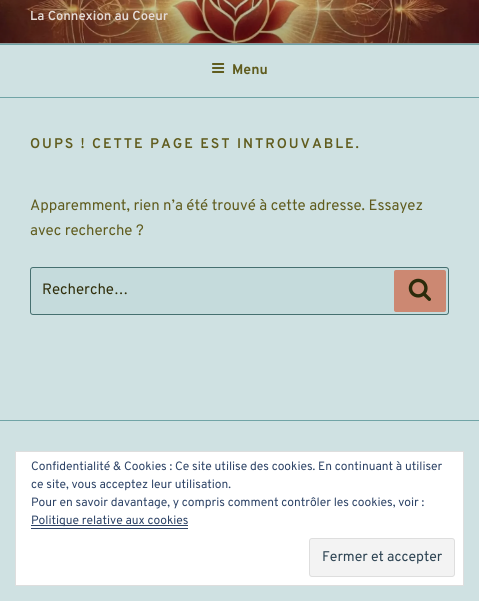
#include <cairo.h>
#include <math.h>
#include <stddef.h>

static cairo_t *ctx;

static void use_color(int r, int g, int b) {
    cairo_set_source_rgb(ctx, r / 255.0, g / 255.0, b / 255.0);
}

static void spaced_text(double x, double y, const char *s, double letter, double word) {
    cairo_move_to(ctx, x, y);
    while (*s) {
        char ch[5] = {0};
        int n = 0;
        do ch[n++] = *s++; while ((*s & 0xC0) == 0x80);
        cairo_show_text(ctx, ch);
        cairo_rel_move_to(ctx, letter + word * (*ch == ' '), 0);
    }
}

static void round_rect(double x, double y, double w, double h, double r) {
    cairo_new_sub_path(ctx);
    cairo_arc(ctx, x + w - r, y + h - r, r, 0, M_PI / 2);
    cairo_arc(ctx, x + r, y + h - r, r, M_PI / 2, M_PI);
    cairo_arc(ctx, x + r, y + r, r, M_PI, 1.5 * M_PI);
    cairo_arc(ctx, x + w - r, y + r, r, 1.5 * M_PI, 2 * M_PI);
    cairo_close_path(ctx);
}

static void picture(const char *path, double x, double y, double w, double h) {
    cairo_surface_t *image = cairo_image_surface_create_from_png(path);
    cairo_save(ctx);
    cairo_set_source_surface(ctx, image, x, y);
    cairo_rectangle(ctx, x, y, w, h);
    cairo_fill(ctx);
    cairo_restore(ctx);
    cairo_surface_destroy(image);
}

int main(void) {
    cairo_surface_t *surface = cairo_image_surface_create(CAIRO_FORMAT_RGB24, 479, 601);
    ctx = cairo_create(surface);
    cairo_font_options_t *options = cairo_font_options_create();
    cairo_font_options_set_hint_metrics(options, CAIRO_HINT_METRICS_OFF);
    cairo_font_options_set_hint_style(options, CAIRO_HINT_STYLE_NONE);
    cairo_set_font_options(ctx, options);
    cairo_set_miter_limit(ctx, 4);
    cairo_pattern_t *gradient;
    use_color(207, 225, 226);
    cairo_paint(ctx);
    use_color(200, 221, 222);
    cairo_rectangle(ctx, 0, 43, 479, 1);
    cairo_fill(ctx);
    picture("img1.png", 0, 0, 479, 43);
    gradient = cairo_pattern_create_linear(240, -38, 240, 44);
    cairo_pattern_add_color_stop_rgba(gradient, 0, 0, 0, 0, 0);
    cairo_pattern_add_color_stop_rgba(gradient, 0.75, 0, 0, 0, 0.3);
    cairo_pattern_add_color_stop_rgba(gradient, 1, 0, 0, 0, 0.3);
    cairo_set_source(ctx, gradient);
    cairo_pattern_destroy(gradient);
    cairo_rectangle(ctx, 0, 0, 479, 44);
    cairo_fill(ctx);
    cairo_select_font_face(ctx, "Overpass SemiBold", CAIRO_FONT_SLANT_NORMAL, CAIRO_FONT_WEIGHT_NORMAL);
    cairo_set_font_size(ctx, 13);
    use_color(229, 220, 214);
    cairo_move_to(ctx, 30, 20);
    cairo_show_text(ctx, "La Connexion au Coeur");
    use_color(113, 164, 166);
    cairo_rectangle(ctx, 0, 44, 479, 1);
    cairo_fill(ctx);
    cairo_rectangle(ctx, 0, 97, 479, 1);
    cairo_fill(ctx);
    picture("img2.png", 212, 63, 13, 10);
    cairo_select_font_face(ctx, "Overpass", CAIRO_FONT_SLANT_NORMAL, CAIRO_FONT_WEIGHT_BOLD);
    cairo_set_font_size(ctx, 14);
    use_color(96, 92, 30);
    cairo_move_to(ctx, 232, 74);
    cairo_show_text(ctx, "Menu");
    cairo_select_font_face(ctx, "Overpass SemiBold", CAIRO_FONT_SLANT_NORMAL, CAIRO_FONT_WEIGHT_NORMAL);
    spaced_text(30, 148, "OUPS ! CETTE PAGE EST INTROUVABLE.", 1.95, 0);
    cairo_select_font_face(ctx, "Overpass", CAIRO_FONT_SLANT_NORMAL, CAIRO_FONT_WEIGHT_NORMAL);
    cairo_set_font_size(ctx, 15);
    cairo_move_to(ctx, 30, 210);
    cairo_show_text(ctx, "Apparemment, rien n’a été trouvé à cette adresse. Essayez");
    cairo_move_to(ctx, 30, 235);
    cairo_show_text(ctx, "avec recherche ?");
    use_color(197, 219, 220);
    round_rect(30.5, 267.5, 418, 47, 2.5);
    cairo_fill_preserve(ctx);
    use_color(70, 112, 112);
    cairo_set_line_width(ctx, 1);
    cairo_stroke(ctx);
    use_color(48, 47, 12);
    cairo_move_to(ctx, 42, 294);
    cairo_show_text(ctx, "Recherche…");
    use_color(204, 136, 114);
    round_rect(394, 270, 52, 42, 2);
    cairo_fill(ctx);
    picture("img3.png", 408, 278, 23, 23);
    use_color(113, 164, 166);
    cairo_rectangle(ctx, 0, 420, 479, 1);
    cairo_fill(ctx);
    use_color(255, 255, 255);
    cairo_rectangle(ctx, 15.5, 451.5, 448, 134);
    cairo_fill_preserve(ctx);
    use_color(222, 222, 222);
    cairo_stroke(ctx);
    cairo_set_font_size(ctx, 12);
    use_color(46, 68, 103);
    cairo_move_to(ctx, 31, 470);
    cairo_show_text(ctx, "Confidentialité & Cookies : Ce site utilise des cookies. En continuant à utiliser");
    cairo_move_to(ctx, 31, 488);
    cairo_show_text(ctx, "ce site, vous acceptez leur utilisation.");
    cairo_move_to(ctx, 31, 506);
    cairo_show_text(ctx, "Pour en savoir davantage, y compris comment contrôler les cookies, voir :");
    cairo_rectangle(ctx, 31, 525, 157, 1);
    cairo_fill(ctx);
    cairo_move_to(ctx, 31, 524);
    cairo_show_text(ctx, "Politique relative aux cookies");
    cairo_rectangle(ctx, 31, 528, 157, 1);
    cairo_fill(ctx);
    use_color(243, 243, 243);
    round_rect(309.5, 538.5, 145, 38, 2.5);
    cairo_fill_preserve(ctx);
    use_color(222, 222, 222);
    cairo_stroke(ctx);
    cairo_set_font_size(ctx, 14);
    use_color(46, 68, 83);
    cairo_move_to(ctx, 322, 561);
    cairo_show_text(ctx, "Fermer et accepter");
    cairo_surface_write_to_png(surface, "result.png");
    cairo_font_options_destroy(options);
    cairo_destroy(ctx);
    cairo_surface_destroy(surface);
    return 0;
}
